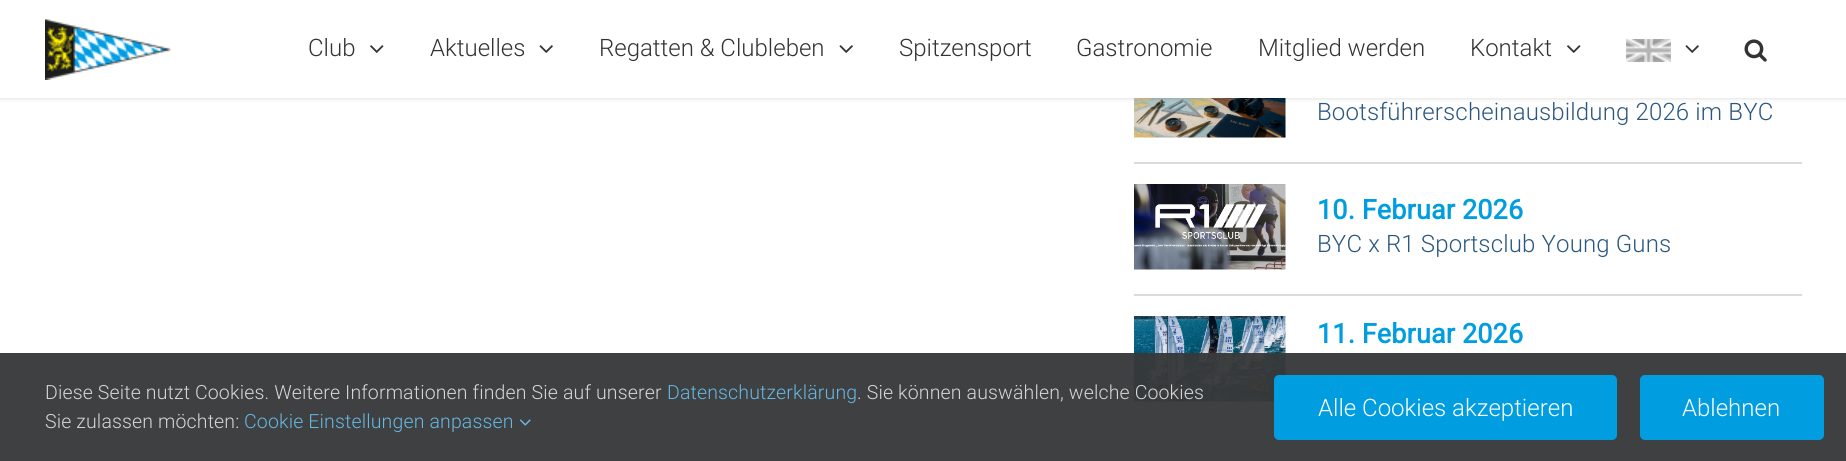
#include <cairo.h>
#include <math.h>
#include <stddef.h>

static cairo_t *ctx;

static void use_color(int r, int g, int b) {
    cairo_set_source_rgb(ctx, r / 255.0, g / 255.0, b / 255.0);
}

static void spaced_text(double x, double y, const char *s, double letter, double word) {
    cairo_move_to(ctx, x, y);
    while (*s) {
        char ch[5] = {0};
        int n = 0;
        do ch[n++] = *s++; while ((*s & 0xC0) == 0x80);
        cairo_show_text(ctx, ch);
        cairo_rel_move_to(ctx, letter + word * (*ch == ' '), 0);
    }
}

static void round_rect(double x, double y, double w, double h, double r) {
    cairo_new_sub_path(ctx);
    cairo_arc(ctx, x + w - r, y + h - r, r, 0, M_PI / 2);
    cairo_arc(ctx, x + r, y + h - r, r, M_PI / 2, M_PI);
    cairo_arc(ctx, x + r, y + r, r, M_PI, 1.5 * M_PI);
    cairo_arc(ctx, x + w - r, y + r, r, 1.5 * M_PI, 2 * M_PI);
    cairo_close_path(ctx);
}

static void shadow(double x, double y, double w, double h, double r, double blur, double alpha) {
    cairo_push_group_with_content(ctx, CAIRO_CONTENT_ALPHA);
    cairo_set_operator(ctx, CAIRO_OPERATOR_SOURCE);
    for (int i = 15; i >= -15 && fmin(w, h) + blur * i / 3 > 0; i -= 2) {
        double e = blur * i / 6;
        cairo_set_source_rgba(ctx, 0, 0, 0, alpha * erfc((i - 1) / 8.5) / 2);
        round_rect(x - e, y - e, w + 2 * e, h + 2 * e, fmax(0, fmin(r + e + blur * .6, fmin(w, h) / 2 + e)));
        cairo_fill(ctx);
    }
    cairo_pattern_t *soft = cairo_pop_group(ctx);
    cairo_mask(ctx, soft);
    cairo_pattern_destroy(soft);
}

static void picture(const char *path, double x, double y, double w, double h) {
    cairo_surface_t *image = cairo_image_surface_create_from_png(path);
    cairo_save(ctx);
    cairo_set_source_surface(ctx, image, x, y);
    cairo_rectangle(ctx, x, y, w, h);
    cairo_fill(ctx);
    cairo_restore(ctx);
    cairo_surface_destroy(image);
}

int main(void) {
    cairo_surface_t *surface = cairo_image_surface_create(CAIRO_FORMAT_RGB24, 1846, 461);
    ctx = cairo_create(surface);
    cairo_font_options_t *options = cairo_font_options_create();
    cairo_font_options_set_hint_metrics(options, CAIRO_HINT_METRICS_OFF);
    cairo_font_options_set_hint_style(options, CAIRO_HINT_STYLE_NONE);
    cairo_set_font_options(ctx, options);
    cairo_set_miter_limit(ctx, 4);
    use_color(255, 255, 255);
    cairo_paint(ctx);
    picture("img6.png", 1134, 98, 152, 40);
    use_color(0, 0, 0);
    shadow(0, 2, 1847, 97, 0, 2, 0.12);
    use_color(255, 255, 255);
    cairo_rectangle(ctx, 0, 0, 1846, 98);
    cairo_fill(ctx);
    picture("img1.png", 45, 19, 126, 61);
    cairo_select_font_face(ctx, "Roboto Light", CAIRO_FONT_SLANT_NORMAL, CAIRO_FONT_WEIGHT_NORMAL);
    cairo_set_font_size(ctx, 24);
    use_color(51, 51, 51);
    cairo_move_to(ctx, 308, 56);
    cairo_show_text(ctx, "Club");
    picture("img2.png", 370, 45, 14, 8);
    cairo_move_to(ctx, 430, 56);
    cairo_show_text(ctx, "Aktuelles");
    picture("img3.png", 539, 45, 14, 8);
    cairo_move_to(ctx, 599, 56);
    cairo_show_text(ctx, "Regatten & Clubleben");
    picture("img3.png", 839, 45, 14, 8);
    cairo_move_to(ctx, 899, 56);
    cairo_show_text(ctx, "Spitzensport");
    cairo_move_to(ctx, 1076, 56);
    cairo_show_text(ctx, "Gastronomie");
    cairo_move_to(ctx, 1258, 56);
    cairo_show_text(ctx, "Mitglied werden");
    cairo_move_to(ctx, 1470, 56);
    cairo_show_text(ctx, "Kontakt");
    picture("img2.png", 1567, 45, 14, 8);
    picture("img4.png", 1626, 39, 45, 23);
    picture("img3.png", 1685, 45, 14, 8);
    picture("img5.png", 1744, 39, 23, 23);
    use_color(42, 88, 128);
    spaced_text(1317, 120, "Bootsführerscheinausbildung 2026 im BYC", 0.15, 0);
    use_color(220, 218, 219);
    cairo_rectangle(ctx, 1134, 162, 668, 2);
    cairo_fill(ctx);
    picture("img7.png", 1134, 184, 152, 86);
    cairo_select_font_face(ctx, "Roboto", CAIRO_FONT_SLANT_NORMAL, CAIRO_FONT_WEIGHT_BOLD);
    cairo_set_font_size(ctx, 27);
    use_color(0, 158, 224);
    spaced_text(1317, 219, "10. Februar 2026", 0.15, 0);
    cairo_select_font_face(ctx, "Roboto Light", CAIRO_FONT_SLANT_NORMAL, CAIRO_FONT_WEIGHT_NORMAL);
    cairo_set_font_size(ctx, 24);
    use_color(42, 88, 128);
    spaced_text(1317, 252, "BYC x R1 Sportsclub Young Guns", 0.15, 0);
    use_color(220, 218, 219);
    cairo_rectangle(ctx, 1134, 294, 668, 2);
    cairo_fill(ctx);
    picture("img8.png", 1134, 316, 152, 86);
    cairo_select_font_face(ctx, "Roboto", CAIRO_FONT_SLANT_NORMAL, CAIRO_FONT_WEIGHT_BOLD);
    cairo_set_font_size(ctx, 27);
    use_color(0, 158, 224);
    spaced_text(1317, 343, "11. Februar 2026", 0.15, 0);
    use_color(220, 218, 219);
    cairo_rectangle(ctx, 1134, 434, 507, 2);
    cairo_fill(ctx);
    cairo_set_source_rgba(ctx, 0.212, 0.22, 0.224, 0.96);
    cairo_rectangle(ctx, 0, 353, 1846, 108);
    cairo_fill(ctx);
    cairo_select_font_face(ctx, "Roboto Light", CAIRO_FONT_SLANT_NORMAL, CAIRO_FONT_WEIGHT_NORMAL);
    cairo_set_font_size(ctx, 19.5);
    use_color(214, 214, 214);
    spaced_text(45, 399, "Diese Seite nutzt Cookies. Weitere Informationen finden Sie auf unserer", 0.15, 0);
    use_color(103, 183, 225);
    spaced_text(667, 399, "Datenschutzerklärung", 0.15, 0);
    use_color(214, 214, 214);
    spaced_text(857, 399, ". Sie können auswählen, welche Cookies", 0.15, 0);
    spaced_text(45, 428, "Sie zulassen möchten:", 0.15, 0);
    use_color(103, 183, 225);
    spaced_text(244, 428, "Cookie Einstellungen anpassen", 0.15, 0);
    picture("img9.png", 519, 419, 12, 7);
    use_color(0, 158, 224);
    round_rect(1274, 375, 343, 65, 5);
    cairo_fill(ctx);
    cairo_set_font_size(ctx, 24);
    use_color(255, 255, 255);
    cairo_move_to(ctx, 1318, 416);
    cairo_show_text(ctx, "Alle Cookies akzeptieren");
    use_color(0, 158, 224);
    round_rect(1640, 375, 184, 65, 5);
    cairo_fill(ctx);
    use_color(255, 255, 255);
    cairo_move_to(ctx, 1682, 416);
    cairo_show_text(ctx, "Ablehnen");
    cairo_surface_write_to_png(surface, "result.png");
    cairo_font_options_destroy(options);
    cairo_destroy(ctx);
    cairo_surface_destroy(surface);
    return 0;
}
